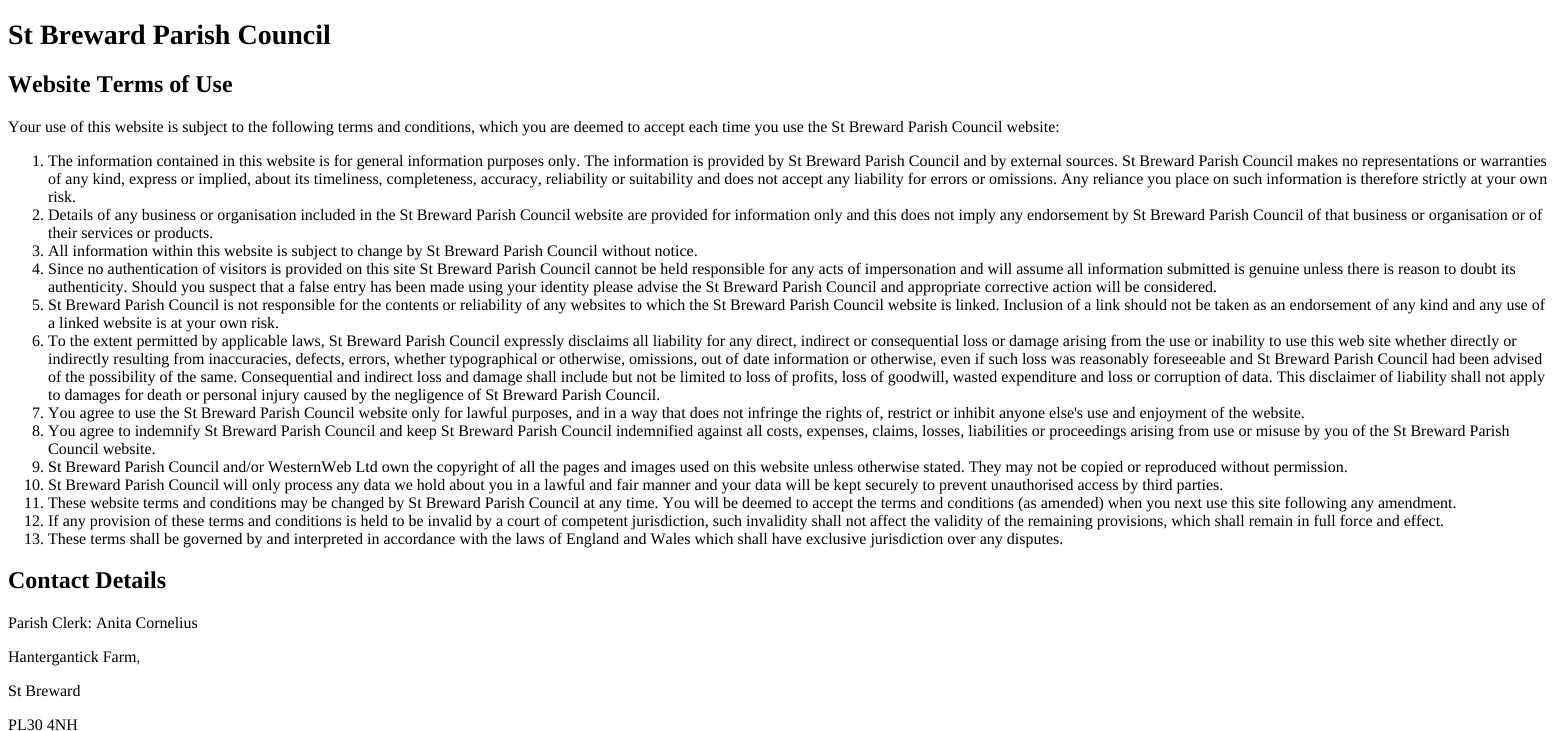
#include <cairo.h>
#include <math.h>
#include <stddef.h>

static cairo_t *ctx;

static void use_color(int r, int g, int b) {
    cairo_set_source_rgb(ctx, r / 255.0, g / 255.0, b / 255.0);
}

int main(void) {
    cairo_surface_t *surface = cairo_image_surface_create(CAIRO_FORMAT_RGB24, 1562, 731);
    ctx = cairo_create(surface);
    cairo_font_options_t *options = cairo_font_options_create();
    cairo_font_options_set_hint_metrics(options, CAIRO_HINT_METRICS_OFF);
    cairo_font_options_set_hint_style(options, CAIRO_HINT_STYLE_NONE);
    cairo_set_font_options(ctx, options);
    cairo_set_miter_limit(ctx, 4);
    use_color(255, 255, 255);
    cairo_paint(ctx);
    cairo_select_font_face(ctx, "Liberation Serif", CAIRO_FONT_SLANT_NORMAL, CAIRO_FONT_WEIGHT_BOLD);
    cairo_set_font_size(ctx, 28);
    use_color(0, 0, 0);
    cairo_move_to(ctx, 8, 44);
    cairo_show_text(ctx, "St Breward Parish Council");
    cairo_set_font_size(ctx, 24);
    cairo_move_to(ctx, 8, 92);
    cairo_show_text(ctx, "Website Terms of Use");
    cairo_select_font_face(ctx, "Liberation Serif", CAIRO_FONT_SLANT_NORMAL, CAIRO_FONT_WEIGHT_NORMAL);
    cairo_set_font_size(ctx, 16);
    cairo_move_to(ctx, 8, 132);
    cairo_show_text(ctx, "Your use of this website is subject to the following terms and conditions, which you are deemed to accept each time you use the St Breward Parish Council website:");
    cairo_move_to(ctx, 32, 166);
    cairo_show_text(ctx, "1. The information contained in this website is for general information purposes only. The information is provided by St Breward Parish Council and by external sources. St Breward Parish Council makes no representations or warranties");
    cairo_move_to(ctx, 48, 184);
    cairo_show_text(ctx, "of any kind, express or implied, about its timeliness, completeness, accuracy, reliability or suitability and does not accept any liability for errors or omissions. Any reliance you place on such information is therefore strictly at your own");
    cairo_move_to(ctx, 48, 202);
    cairo_show_text(ctx, "risk.");
    cairo_move_to(ctx, 32, 220);
    cairo_show_text(ctx, "2. Details of any business or organisation included in the St Breward Parish Council website are provided for information only and this does not imply any endorsement by St Breward Parish Council of that business or organisation or of");
    cairo_move_to(ctx, 48, 238);
    cairo_show_text(ctx, "their services or products.");
    cairo_move_to(ctx, 32, 256);
    cairo_show_text(ctx, "3. All information within this website is subject to change by St Breward Parish Council without notice.");
    cairo_move_to(ctx, 32, 274);
    cairo_show_text(ctx, "4. Since no authentication of visitors is provided on this site St Breward Parish Council cannot be held responsible for any acts of impersonation and will assume all information submitted is genuine unless there is reason to doubt its");
    cairo_move_to(ctx, 48, 292);
    cairo_show_text(ctx, "authenticity. Should you suspect that a false entry has been made using your identity please advise the St Breward Parish Council and appropriate corrective action will be considered.");
    cairo_move_to(ctx, 32, 310);
    cairo_show_text(ctx, "5. St Breward Parish Council is not responsible for the contents or reliability of any websites to which the St Breward Parish Council website is linked. Inclusion of a link should not be taken as an endorsement of any kind and any use of");
    cairo_move_to(ctx, 48, 328);
    cairo_show_text(ctx, "a linked website is at your own risk.");
    cairo_move_to(ctx, 32, 346);
    cairo_show_text(ctx, "6. To the extent permitted by applicable laws, St Breward Parish Council expressly disclaims all liability for any direct, indirect or consequential loss or damage arising from the use or inability to use this web site whether directly or");
    cairo_move_to(ctx, 48, 364);
    cairo_show_text(ctx, "indirectly resulting from inaccuracies, defects, errors, whether typographical or otherwise, omissions, out of date information or otherwise, even if such loss was reasonably foreseeable and St Breward Parish Council had been advised");
    cairo_move_to(ctx, 48, 382);
    cairo_show_text(ctx, "of the possibility of the same. Consequential and indirect loss and damage shall include but not be limited to loss of profits, loss of goodwill, wasted expenditure and loss or corruption of data. This disclaimer of liability shall not apply");
    cairo_move_to(ctx, 48, 400);
    cairo_show_text(ctx, "to damages for death or personal injury caused by the negligence of St Breward Parish Council.");
    cairo_move_to(ctx, 32, 418);
    cairo_show_text(ctx, "7. You agree to use the St Breward Parish Council website only for lawful purposes, and in a way that does not infringe the rights of, restrict or inhibit anyone else's use and enjoyment of the website.");
    cairo_move_to(ctx, 32, 436);
    cairo_show_text(ctx, "8. You agree to indemnify St Breward Parish Council and keep St Breward Parish Council indemnified against all costs, expenses, claims, losses, liabilities or proceedings arising from use or misuse by you of the St Breward Parish");
    cairo_move_to(ctx, 48, 454);
    cairo_show_text(ctx, "Council website.");
    cairo_move_to(ctx, 32, 472);
    cairo_show_text(ctx, "9. St Breward Parish Council and/or WesternWeb Ltd own the copyright of all the pages and images used on this website unless otherwise stated. They may not be copied or reproduced without permission.");
    cairo_move_to(ctx, 24, 490);
    cairo_show_text(ctx, "10. St Breward Parish Council will only process any data we hold about you in a lawful and fair manner and your data will be kept securely to prevent unauthorised access by third parties.");
    cairo_move_to(ctx, 24, 508);
    cairo_show_text(ctx, "11. These website terms and conditions may be changed by St Breward Parish Council at any time. You will be deemed to accept the terms and conditions (as amended) when you next use this site following any amendment.");
    cairo_move_to(ctx, 24, 526);
    cairo_show_text(ctx, "12. If any provision of these terms and conditions is held to be invalid by a court of competent jurisdiction, such invalidity shall not affect the validity of the remaining provisions, which shall remain in full force and effect.");
    cairo_move_to(ctx, 24, 544);
    cairo_show_text(ctx, "13. These terms shall be governed by and interpreted in accordance with the laws of England and Wales which shall have exclusive jurisdiction over any disputes.");
    cairo_select_font_face(ctx, "Liberation Serif", CAIRO_FONT_SLANT_NORMAL, CAIRO_FONT_WEIGHT_BOLD);
    cairo_set_font_size(ctx, 24);
    cairo_move_to(ctx, 8, 588);
    cairo_show_text(ctx, "Contact Details");
    cairo_select_font_face(ctx, "Liberation Serif", CAIRO_FONT_SLANT_NORMAL, CAIRO_FONT_WEIGHT_NORMAL);
    cairo_set_font_size(ctx, 16);
    cairo_move_to(ctx, 8, 628);
    cairo_show_text(ctx, "Parish Clerk: Anita Cornelius");
    cairo_move_to(ctx, 8, 662);
    cairo_show_text(ctx, "Hantergantick Farm,");
    cairo_move_to(ctx, 8, 696);
    cairo_show_text(ctx, "St Breward");
    cairo_move_to(ctx, 8, 730);
    cairo_show_text(ctx, "PL30 4NH");
    cairo_surface_write_to_png(surface, "result.png");
    cairo_font_options_destroy(options);
    cairo_destroy(ctx);
    cairo_surface_destroy(surface);
    return 0;
}
